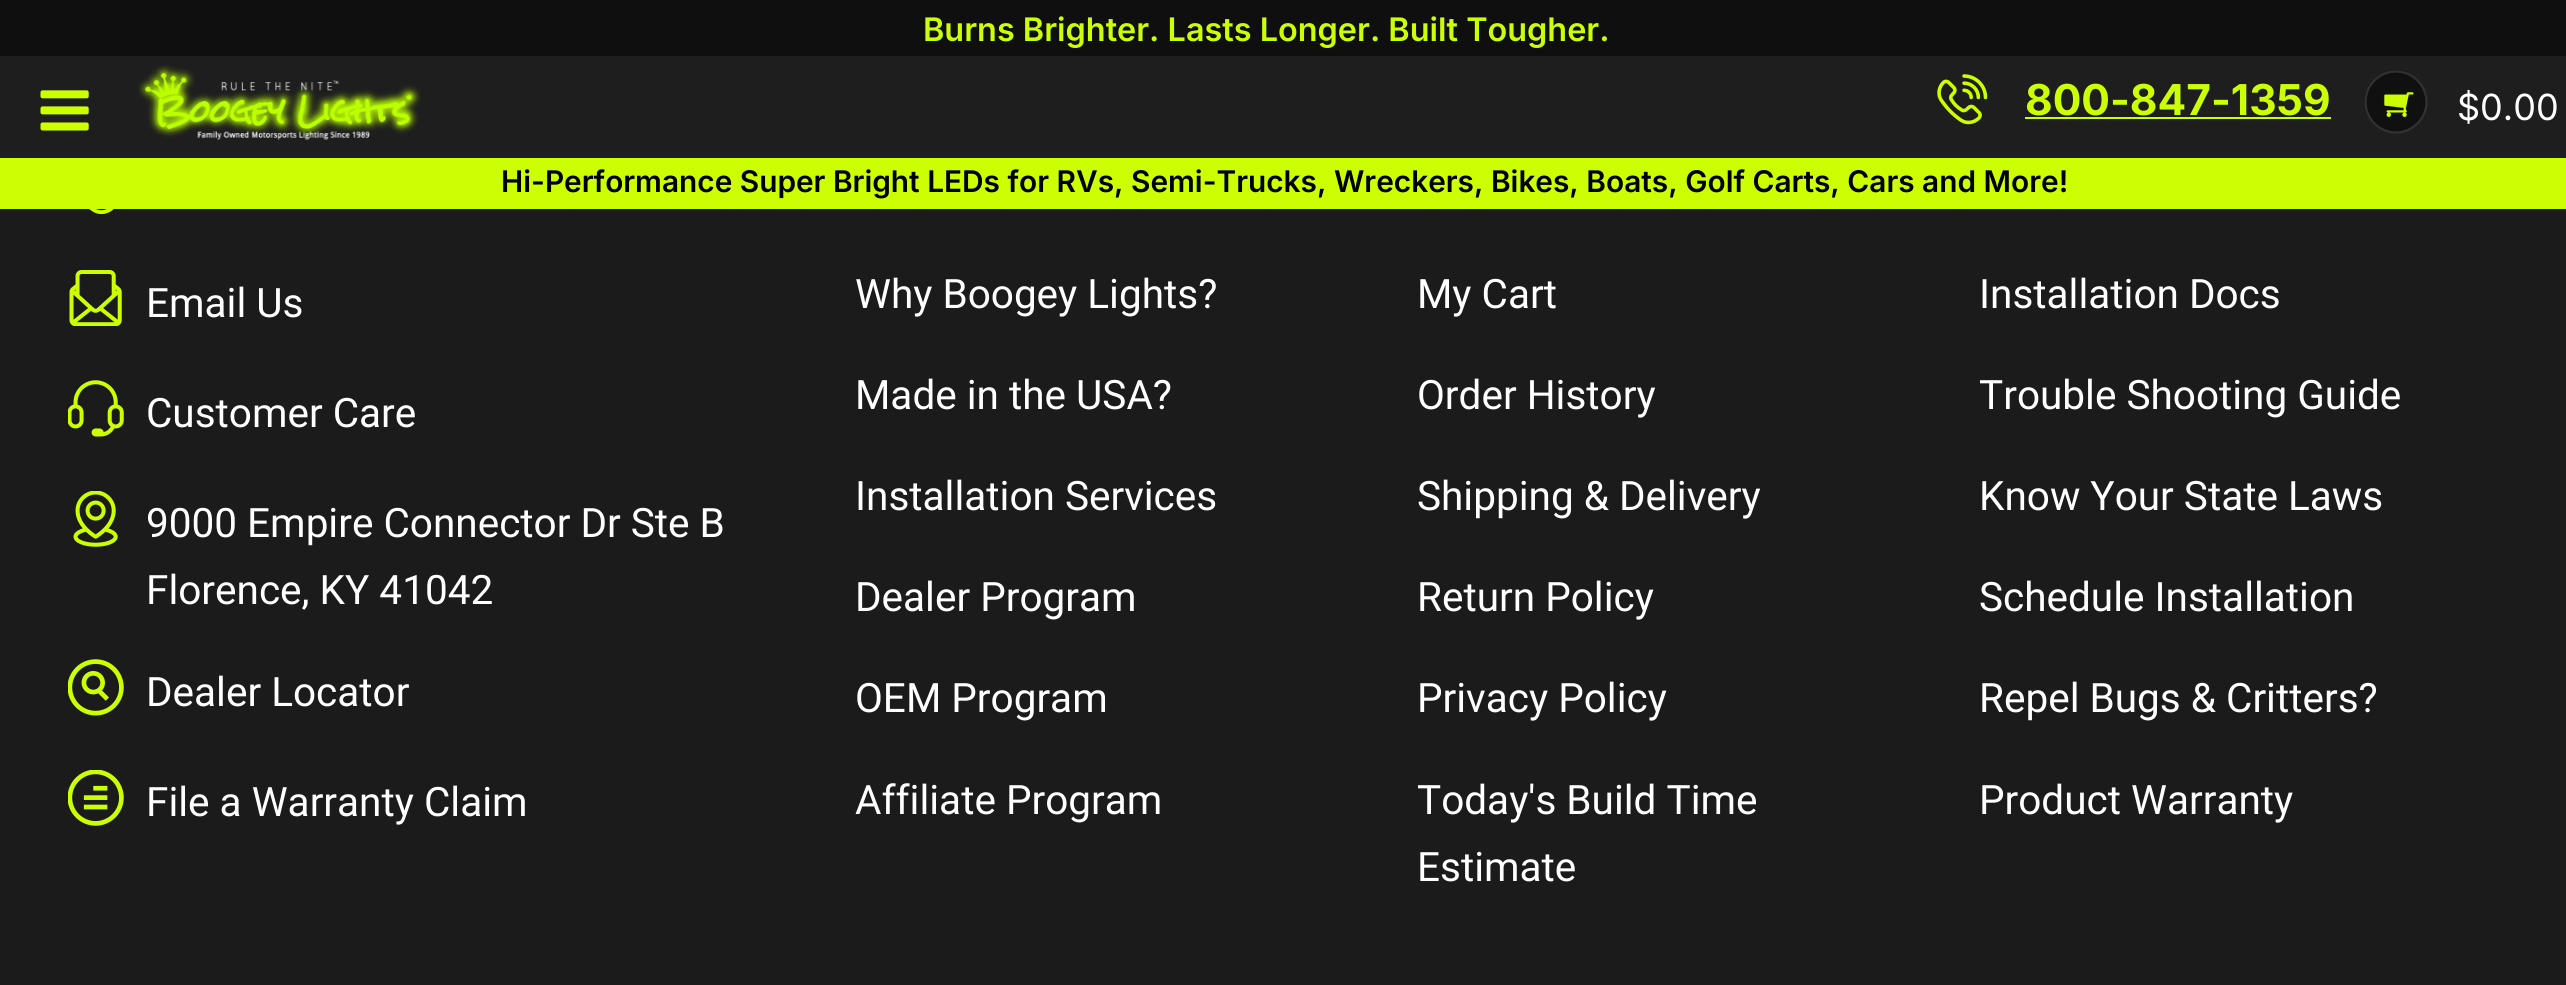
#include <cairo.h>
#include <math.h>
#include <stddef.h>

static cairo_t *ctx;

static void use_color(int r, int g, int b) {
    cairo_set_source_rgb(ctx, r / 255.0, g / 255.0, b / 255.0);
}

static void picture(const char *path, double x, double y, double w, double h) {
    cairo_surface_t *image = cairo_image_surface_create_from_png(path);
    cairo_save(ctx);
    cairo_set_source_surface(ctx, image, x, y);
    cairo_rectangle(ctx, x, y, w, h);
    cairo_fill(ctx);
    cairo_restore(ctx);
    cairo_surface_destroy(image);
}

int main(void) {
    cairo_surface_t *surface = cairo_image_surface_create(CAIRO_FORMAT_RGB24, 2566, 985);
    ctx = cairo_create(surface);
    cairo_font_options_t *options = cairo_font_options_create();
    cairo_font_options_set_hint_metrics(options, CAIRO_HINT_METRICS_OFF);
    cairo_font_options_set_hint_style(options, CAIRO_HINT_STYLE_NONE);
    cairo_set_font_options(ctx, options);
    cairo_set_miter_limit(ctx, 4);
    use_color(27, 27, 27);
    cairo_paint(ctx);
    use_color(30, 30, 30);
    cairo_rectangle(ctx, 0, 56, 2566, 102);
    cairo_fill(ctx);
    use_color(15, 15, 15);
    cairo_rectangle(ctx, 0, 0, 2566, 56);
    cairo_fill(ctx);
    cairo_select_font_face(ctx, "Inter SemiBold", CAIRO_FONT_SLANT_NORMAL, CAIRO_FONT_WEIGHT_NORMAL);
    cairo_set_font_size(ctx, 32.4);
    use_color(204, 255, 4);
    cairo_move_to(ctx, 923, 41);
    cairo_show_text(ctx, "Burns Brighter. Lasts Longer. Built Tougher.");
    picture("img1.png", 40, 90, 49, 41);
    picture("img2.png", 138, 65, 283, 75);
    picture("img3.png", 1937, 74, 51, 51);
    cairo_select_font_face(ctx, "Inter", CAIRO_FONT_SLANT_NORMAL, CAIRO_FONT_WEIGHT_BOLD);
    cairo_set_font_size(ctx, 42.5);
    cairo_move_to(ctx, 2025, 115);
    cairo_show_text(ctx, "800-847-1359");
    cairo_rectangle(ctx, 2025, 117, 306, 2);
    cairo_fill(ctx);
    use_color(16, 16, 16);
    cairo_new_path(ctx);
    cairo_move_to(ctx, 2396, 70);
    cairo_curve_to(ctx, 2379, 70, 2364, 84, 2364, 102);
    cairo_curve_to(ctx, 2364, 119, 2379, 133, 2396, 133);
    cairo_curve_to(ctx, 2413, 133, 2427, 119, 2427, 102);
    cairo_curve_to(ctx, 2427, 84, 2413, 70, 2396, 70);
    cairo_close_path(ctx);
    cairo_fill(ctx);
    cairo_new_path(ctx);
    cairo_move_to(ctx, 2396, 71.5);
    cairo_curve_to(ctx, 2379, 71.5, 2365.5, 85, 2365.5, 102);
    cairo_curve_to(ctx, 2365.5, 118.5, 2379, 132.5, 2396, 132.5);
    cairo_curve_to(ctx, 2412.5, 132.5, 2426.5, 118.5, 2426.5, 102);
    cairo_curve_to(ctx, 2426.5, 85, 2412.5, 71.5, 2396, 71.5);
    cairo_close_path(ctx);
    use_color(50, 50, 50);
    cairo_set_line_width(ctx, 2.2);
    cairo_stroke(ctx);
    picture("img4.png", 2384, 92, 30, 25);
    cairo_select_font_face(ctx, "Inter", CAIRO_FONT_SLANT_NORMAL, CAIRO_FONT_WEIGHT_NORMAL);
    cairo_set_font_size(ctx, 36);
    use_color(255, 255, 255);
    cairo_move_to(ctx, 2457, 120);
    cairo_show_text(ctx, "$0.00");
    use_color(204, 255, 4);
    cairo_rectangle(ctx, 0, 158, 2566, 51);
    cairo_fill(ctx);
    cairo_select_font_face(ctx, "Inter SemiBold", CAIRO_FONT_SLANT_NORMAL, CAIRO_FONT_WEIGHT_NORMAL);
    cairo_set_font_size(ctx, 29.8);
    use_color(0, 0, 0);
    cairo_move_to(ctx, 501, 192);
    cairo_show_text(ctx, "Hi-Performance Super Bright LEDs for RVs, Semi-Trucks, Wreckers, Bikes, Boats, Golf Carts, Cars and More!");
    picture("img5.png", 89, 209, 25, 6);
    picture("img6.png", 69, 270, 53, 56);
    cairo_select_font_face(ctx, "Roboto", CAIRO_FONT_SLANT_NORMAL, CAIRO_FONT_WEIGHT_NORMAL);
    cairo_set_font_size(ctx, 40.5);
    use_color(255, 255, 255);
    cairo_move_to(ctx, 146, 317);
    cairo_show_text(ctx, "Email Us");
    picture("img7.png", 68, 380, 56, 57);
    cairo_move_to(ctx, 146, 427);
    cairo_show_text(ctx, "Customer Care");
    picture("img8.png", 73, 491, 45, 56);
    cairo_move_to(ctx, 146, 537);
    cairo_show_text(ctx, "9000 Empire Connector Dr Ste B");
    cairo_move_to(ctx, 146, 604);
    cairo_show_text(ctx, "Florence, KY 41042");
    picture("img9.png", 68, 659, 56, 57);
    cairo_move_to(ctx, 146, 706);
    cairo_show_text(ctx, "Dealer Locator");
    picture("img10.png", 68, 770, 56, 56);
    cairo_move_to(ctx, 146, 816);
    cairo_show_text(ctx, "File a Warranty Claim");
    cairo_move_to(ctx, 855, 308);
    cairo_show_text(ctx, "Why Boogey Lights?");
    cairo_move_to(ctx, 855, 409);
    cairo_show_text(ctx, "Made in the USA?");
    cairo_move_to(ctx, 855, 510);
    cairo_show_text(ctx, "Installation Services");
    cairo_move_to(ctx, 855, 611);
    cairo_show_text(ctx, "Dealer Program");
    cairo_move_to(ctx, 855, 712);
    cairo_show_text(ctx, "OEM Program");
    cairo_move_to(ctx, 855, 814);
    cairo_show_text(ctx, "Affiliate Program");
    cairo_move_to(ctx, 1417, 308);
    cairo_show_text(ctx, "My Cart");
    cairo_move_to(ctx, 1417, 409);
    cairo_show_text(ctx, "Order History");
    cairo_move_to(ctx, 1417, 510);
    cairo_show_text(ctx, "Shipping & Delivery");
    cairo_move_to(ctx, 1417, 611);
    cairo_show_text(ctx, "Return Policy");
    cairo_move_to(ctx, 1417, 712);
    cairo_show_text(ctx, "Privacy Policy");
    cairo_move_to(ctx, 1417, 814);
    cairo_show_text(ctx, "Today's Build Time");
    cairo_move_to(ctx, 1417, 881);
    cairo_show_text(ctx, "Estimate");
    cairo_move_to(ctx, 1979, 308);
    cairo_show_text(ctx, "Installation Docs");
    cairo_move_to(ctx, 1979, 409);
    cairo_show_text(ctx, "Trouble Shooting Guide");
    cairo_move_to(ctx, 1979, 510);
    cairo_show_text(ctx, "Know Your State Laws");
    cairo_move_to(ctx, 1979, 611);
    cairo_show_text(ctx, "Schedule Installation");
    cairo_move_to(ctx, 1979, 712);
    cairo_show_text(ctx, "Repel Bugs & Critters?");
    cairo_move_to(ctx, 1979, 814);
    cairo_show_text(ctx, "Product Warranty");
    cairo_surface_write_to_png(surface, "result.png");
    cairo_font_options_destroy(options);
    cairo_destroy(ctx);
    cairo_surface_destroy(surface);
    return 0;
}
